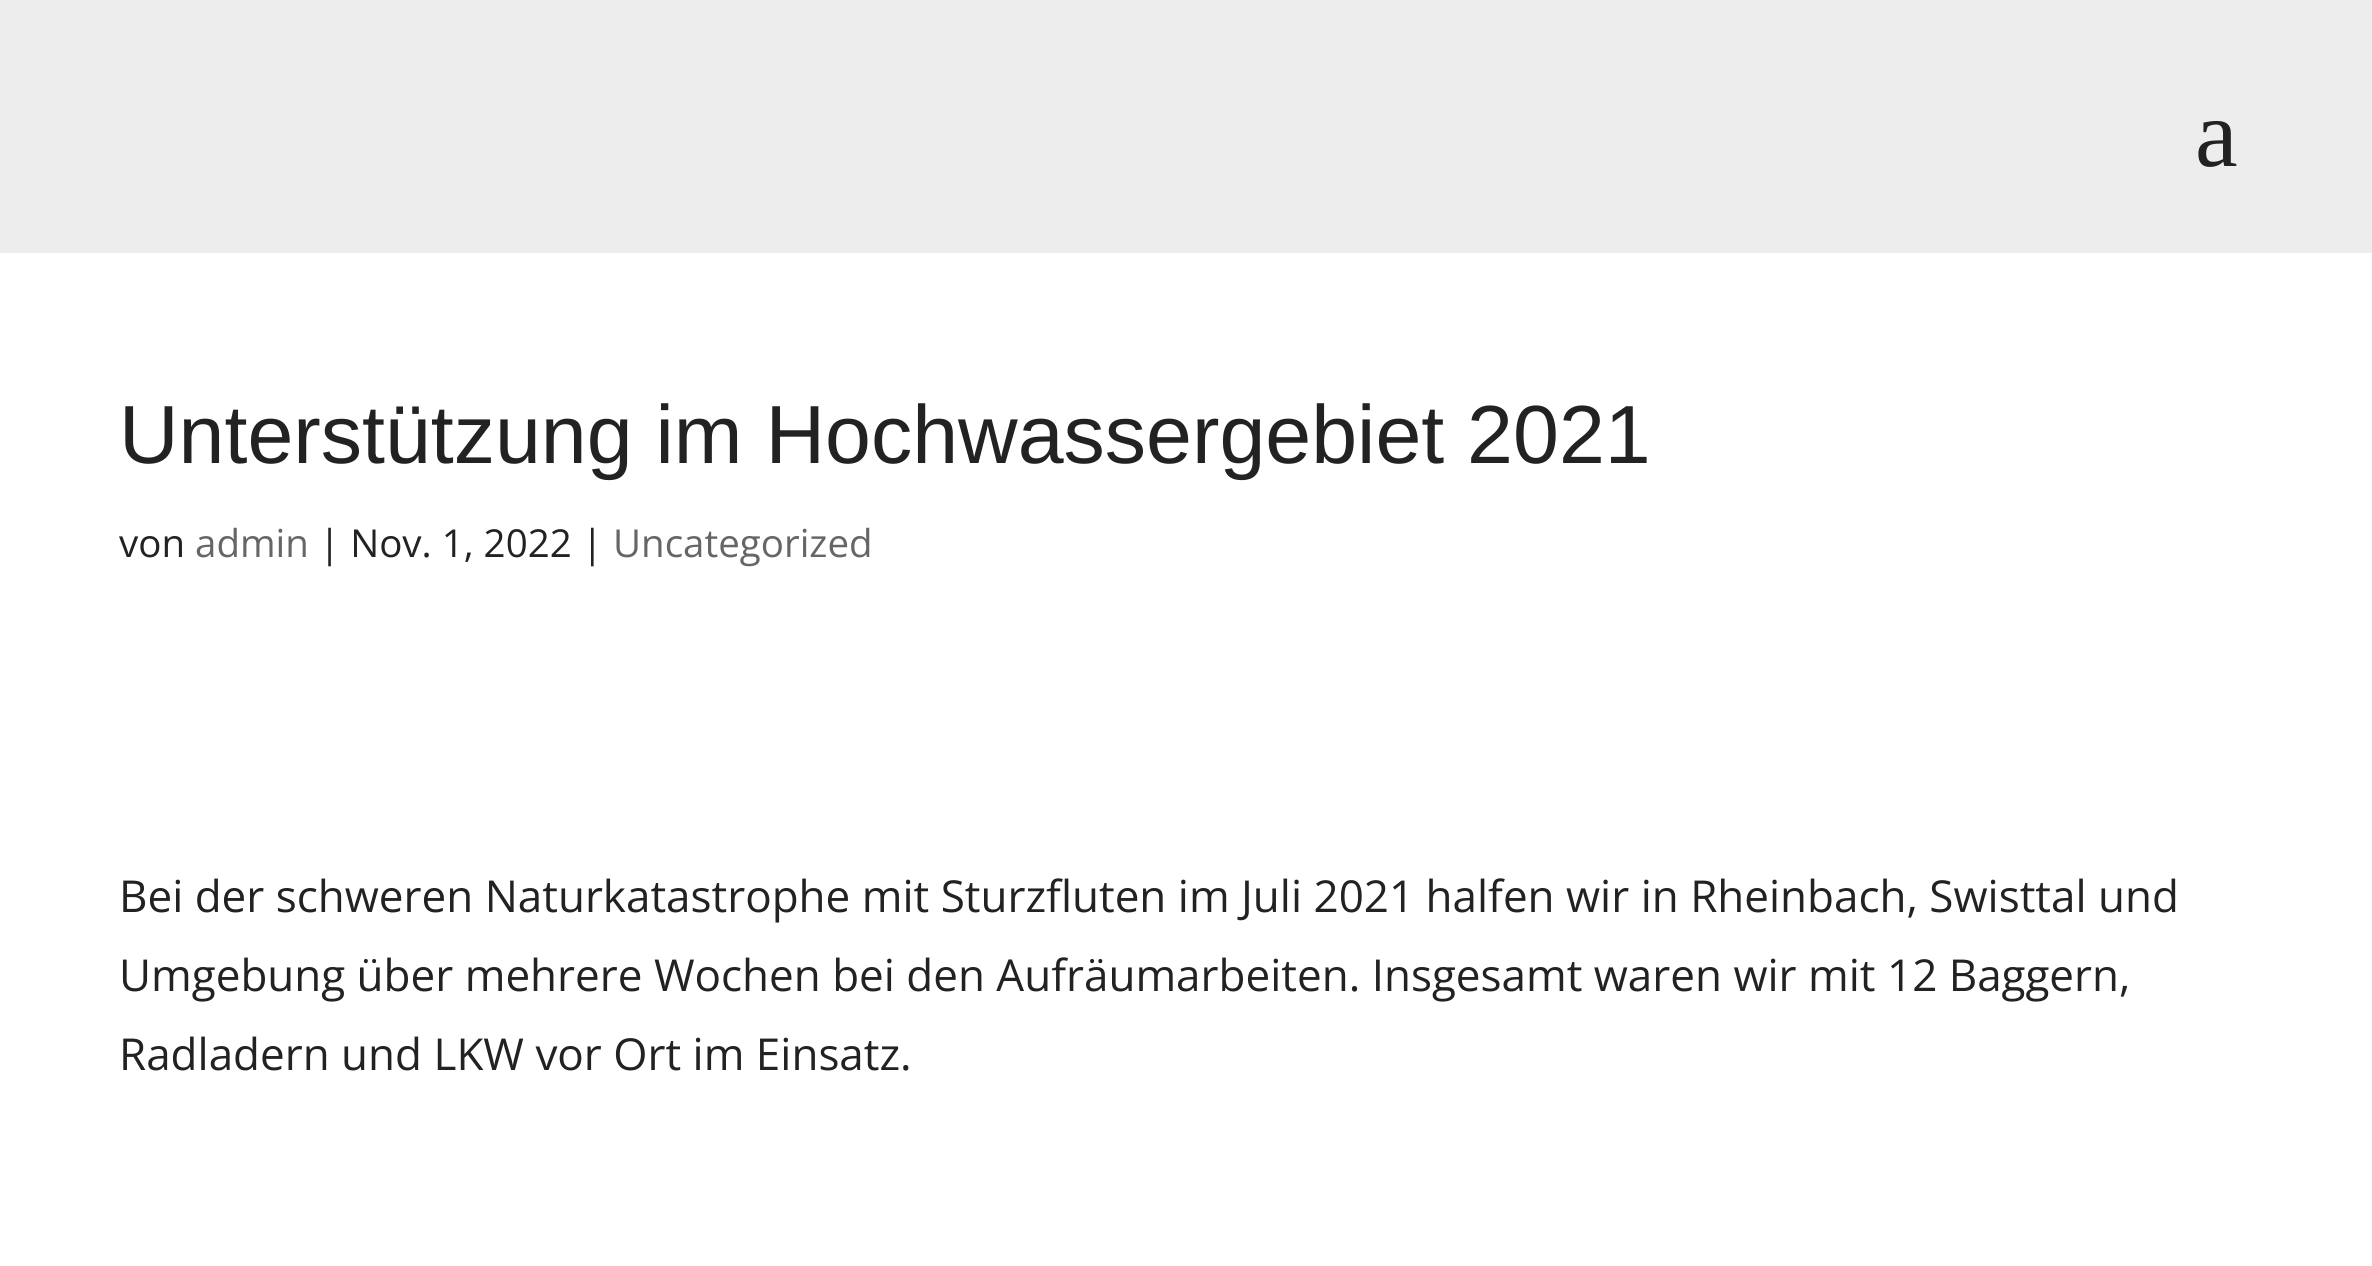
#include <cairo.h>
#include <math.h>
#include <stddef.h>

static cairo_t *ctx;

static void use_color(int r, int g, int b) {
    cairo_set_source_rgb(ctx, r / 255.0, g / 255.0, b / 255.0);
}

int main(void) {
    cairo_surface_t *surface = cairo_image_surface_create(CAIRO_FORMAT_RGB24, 2372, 1266);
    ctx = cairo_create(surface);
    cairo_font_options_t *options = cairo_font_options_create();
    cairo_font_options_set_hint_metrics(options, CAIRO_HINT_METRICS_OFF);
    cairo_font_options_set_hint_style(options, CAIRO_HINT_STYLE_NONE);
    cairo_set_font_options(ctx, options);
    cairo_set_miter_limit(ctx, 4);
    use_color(255, 255, 255);
    cairo_paint(ctx);
    use_color(237, 237, 237);
    cairo_rectangle(ctx, 0, 0, 2372, 253);
    cairo_fill(ctx);
    cairo_select_font_face(ctx, "Liberation Serif", CAIRO_FONT_SLANT_NORMAL, CAIRO_FONT_WEIGHT_NORMAL);
    cairo_set_font_size(ctx, 96);
    use_color(34, 34, 34);
    cairo_move_to(ctx, 2195, 166);
    cairo_show_text(ctx, "a");
    cairo_select_font_face(ctx, "Liberation Sans", CAIRO_FONT_SLANT_NORMAL, CAIRO_FONT_WEIGHT_NORMAL);
    cairo_set_font_size(ctx, 82.5);
    cairo_move_to(ctx, 119, 463);
    cairo_show_text(ctx, "Unterstützung im Hochwassergebiet 2021");
    cairo_select_font_face(ctx, "Open Sans", CAIRO_FONT_SLANT_NORMAL, CAIRO_FONT_WEIGHT_NORMAL);
    cairo_set_font_size(ctx, 38.5);
    cairo_move_to(ctx, 119, 557);
    cairo_show_text(ctx, "von");
    use_color(102, 102, 102);
    cairo_move_to(ctx, 195, 557);
    cairo_show_text(ctx, "admin");
    use_color(34, 34, 34);
    cairo_move_to(ctx, 319, 557);
    cairo_show_text(ctx, "| Nov. 1, 2022 |");
    use_color(102, 102, 102);
    cairo_move_to(ctx, 613, 557);
    cairo_show_text(ctx, "Uncategorized");
    cairo_set_font_size(ctx, 44);
    use_color(34, 34, 34);
    cairo_move_to(ctx, 119, 912);
    cairo_show_text(ctx, "Bei der schweren Naturkatastrophe mit Sturzfluten im Juli 2021 halfen wir in Rheinbach, Swisttal und");
    cairo_move_to(ctx, 119, 991);
    cairo_show_text(ctx, "Umgebung über mehrere Wochen bei den Aufräumarbeiten. Insgesamt waren wir mit 12 Baggern,");
    cairo_move_to(ctx, 119, 1070);
    cairo_show_text(ctx, "Radladern und LKW vor Ort im Einsatz.");
    cairo_surface_write_to_png(surface, "result.png");
    cairo_font_options_destroy(options);
    cairo_destroy(ctx);
    cairo_surface_destroy(surface);
    return 0;
}
